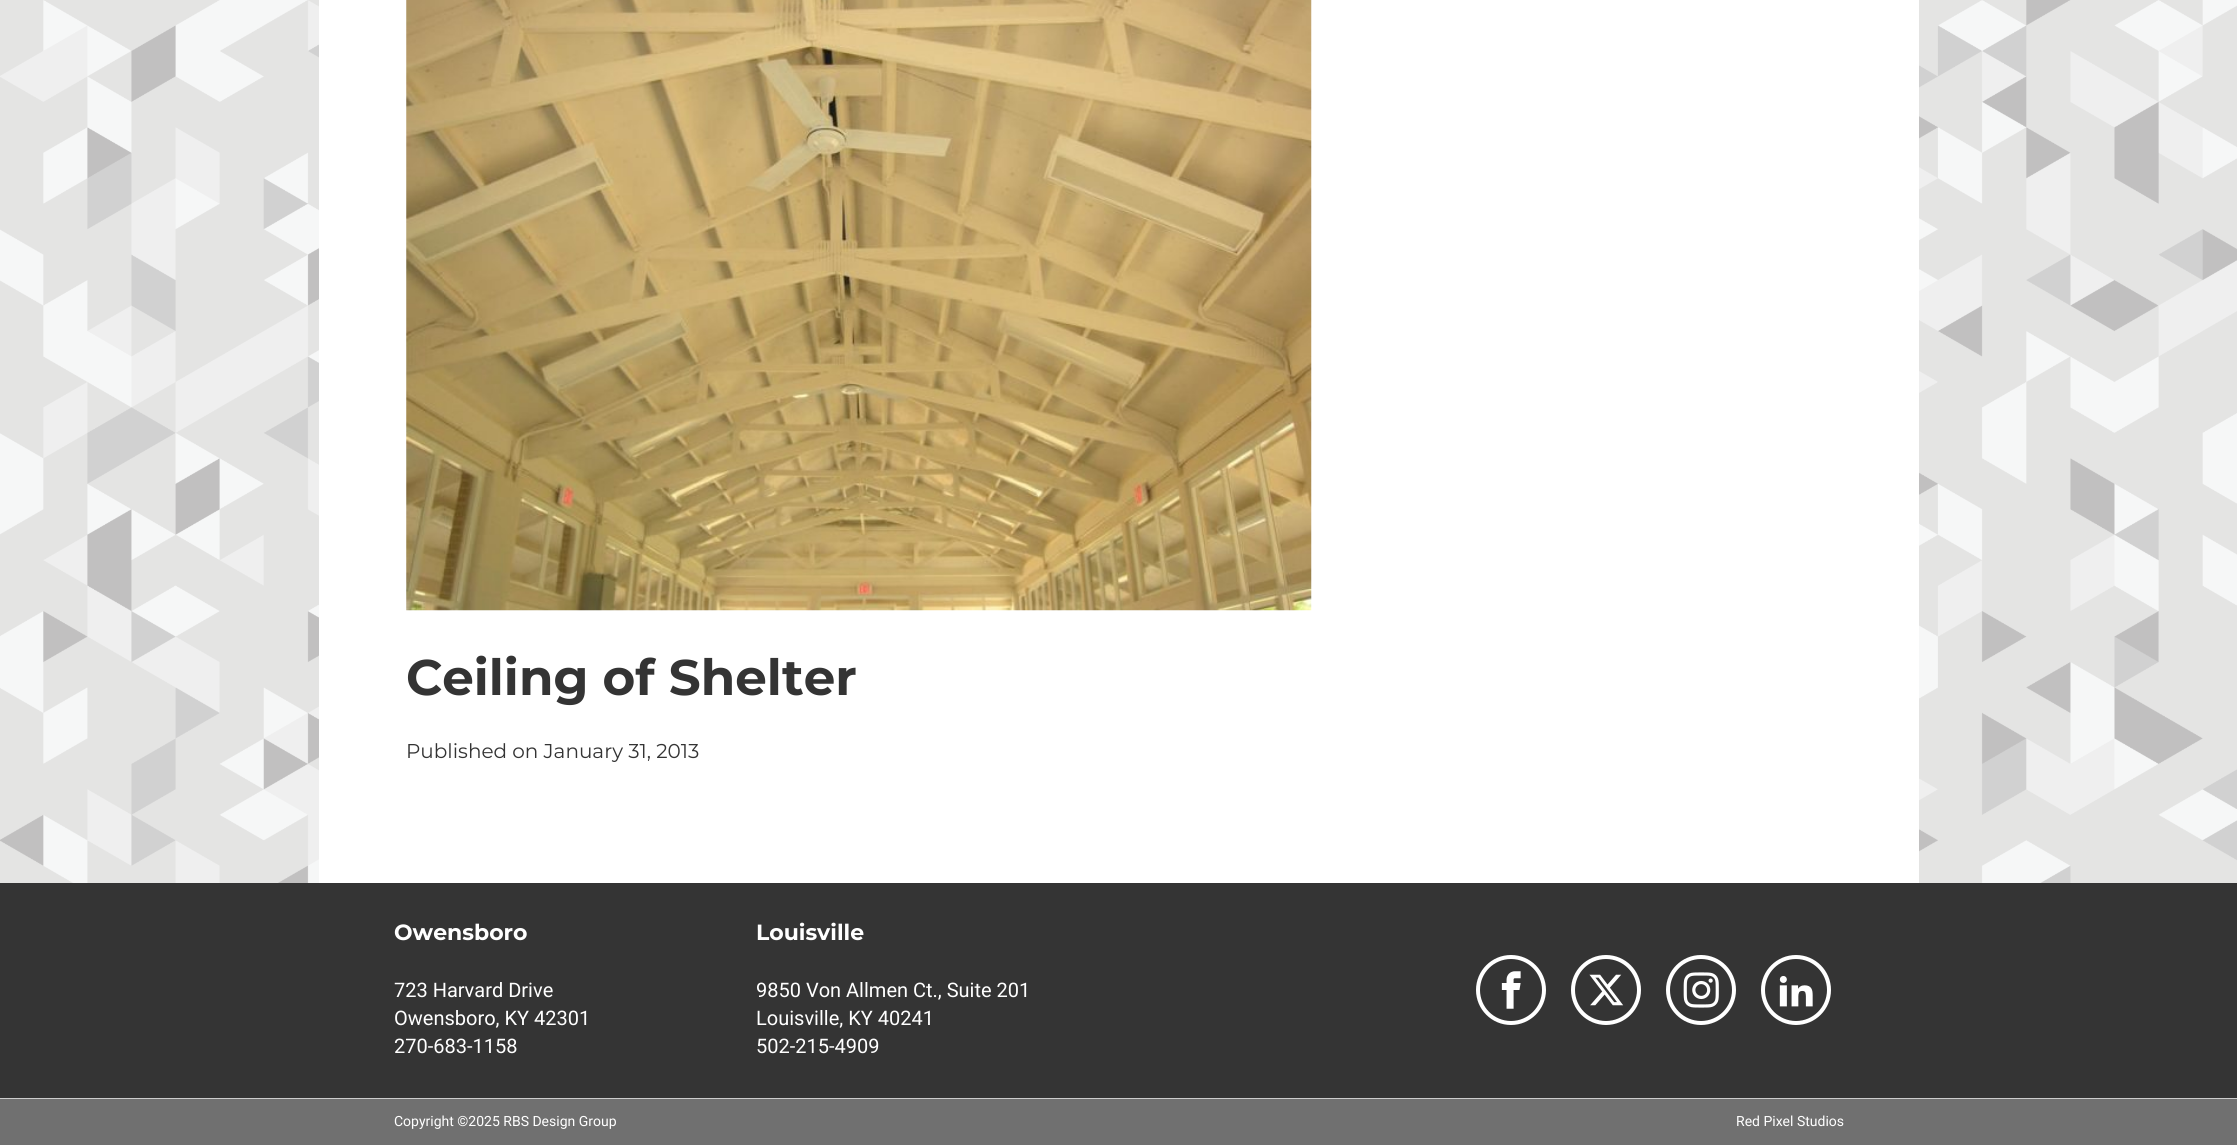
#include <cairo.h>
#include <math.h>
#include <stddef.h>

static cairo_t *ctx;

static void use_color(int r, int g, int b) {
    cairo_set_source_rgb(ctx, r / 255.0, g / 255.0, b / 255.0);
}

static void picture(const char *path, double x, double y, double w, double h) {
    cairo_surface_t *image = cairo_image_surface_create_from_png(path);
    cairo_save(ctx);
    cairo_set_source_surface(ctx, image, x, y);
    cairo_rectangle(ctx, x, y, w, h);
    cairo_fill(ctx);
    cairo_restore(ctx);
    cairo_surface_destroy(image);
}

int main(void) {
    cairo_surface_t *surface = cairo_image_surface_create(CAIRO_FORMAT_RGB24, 2237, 1145);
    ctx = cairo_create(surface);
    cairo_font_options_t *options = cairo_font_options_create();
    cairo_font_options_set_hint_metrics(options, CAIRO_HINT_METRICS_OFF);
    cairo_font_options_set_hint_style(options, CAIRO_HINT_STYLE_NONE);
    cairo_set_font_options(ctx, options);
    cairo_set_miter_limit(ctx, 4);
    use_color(112, 112, 112);
    cairo_paint(ctx);
    picture("img1.png", 0, 0, 2237, 883);
    use_color(255, 255, 255);
    cairo_rectangle(ctx, 319, 0, 1600, 883);
    cairo_fill(ctx);
    picture("img2.png", 406, 0, 906, 611);
    cairo_select_font_face(ctx, "Montserrat", CAIRO_FONT_SLANT_NORMAL, CAIRO_FONT_WEIGHT_BOLD);
    cairo_set_font_size(ctx, 50);
    use_color(52, 52, 52);
    cairo_move_to(ctx, 406, 695);
    cairo_show_text(ctx, "Ceiling of Shelter");
    cairo_select_font_face(ctx, "Montserrat", CAIRO_FONT_SLANT_NORMAL, CAIRO_FONT_WEIGHT_NORMAL);
    cairo_set_font_size(ctx, 20);
    cairo_move_to(ctx, 406, 758);
    cairo_show_text(ctx, "Published on January 31, 2013");
    cairo_rectangle(ctx, 0, 883, 2237, 215);
    cairo_fill(ctx);
    cairo_select_font_face(ctx, "Montserrat", CAIRO_FONT_SLANT_NORMAL, CAIRO_FONT_WEIGHT_BOLD);
    cairo_set_font_size(ctx, 22);
    use_color(255, 255, 255);
    cairo_move_to(ctx, 394, 940);
    cairo_show_text(ctx, "Owensboro");
    cairo_select_font_face(ctx, "Roboto", CAIRO_FONT_SLANT_NORMAL, CAIRO_FONT_WEIGHT_NORMAL);
    cairo_set_font_size(ctx, 20);
    cairo_move_to(ctx, 394, 997);
    cairo_show_text(ctx, "723 Harvard Drive");
    cairo_move_to(ctx, 394, 1025);
    cairo_show_text(ctx, "Owensboro, KY 42301");
    cairo_move_to(ctx, 394, 1053);
    cairo_show_text(ctx, "270-683-1158");
    cairo_select_font_face(ctx, "Montserrat", CAIRO_FONT_SLANT_NORMAL, CAIRO_FONT_WEIGHT_BOLD);
    cairo_set_font_size(ctx, 22);
    cairo_move_to(ctx, 756, 940);
    cairo_show_text(ctx, "Louisville");
    cairo_select_font_face(ctx, "Roboto", CAIRO_FONT_SLANT_NORMAL, CAIRO_FONT_WEIGHT_NORMAL);
    cairo_set_font_size(ctx, 20);
    cairo_move_to(ctx, 756, 997);
    cairo_show_text(ctx, "9850 Von Allmen Ct., Suite 201");
    cairo_move_to(ctx, 756, 1025);
    cairo_show_text(ctx, "Louisville, KY 40241");
    cairo_move_to(ctx, 756, 1053);
    cairo_show_text(ctx, "502-215-4909");
    cairo_new_path(ctx);
    cairo_arc(ctx, 1511, 990, 33, 0, 2 * M_PI);
    cairo_set_line_width(ctx, 4);
    cairo_stroke(ctx);
    picture("img3.png", 1501, 971, 20, 38);
    cairo_arc(ctx, 1606, 990, 33, 0, 2 * M_PI);
    cairo_stroke(ctx);
    picture("img4.png", 1589, 974, 35, 32);
    cairo_arc(ctx, 1701, 990, 33, 0, 2 * M_PI);
    cairo_stroke(ctx);
    picture("img5.png", 1683, 972, 36, 36);
    cairo_arc(ctx, 1796, 990, 33, 0, 2 * M_PI);
    cairo_stroke(ctx);
    picture("img6.png", 1779, 976, 34, 31);
    use_color(204, 204, 204);
    cairo_rectangle(ctx, 0, 1098, 2237, 1);
    cairo_fill(ctx);
    cairo_set_font_size(ctx, 14);
    use_color(255, 255, 255);
    cairo_move_to(ctx, 394, 1126);
    cairo_show_text(ctx, "Copyright ©2025 RBS Design Group");
    cairo_move_to(ctx, 1736, 1126);
    cairo_show_text(ctx, "Red Pixel Studios");
    cairo_surface_write_to_png(surface, "result.png");
    cairo_font_options_destroy(options);
    cairo_destroy(ctx);
    cairo_surface_destroy(surface);
    return 0;
}
